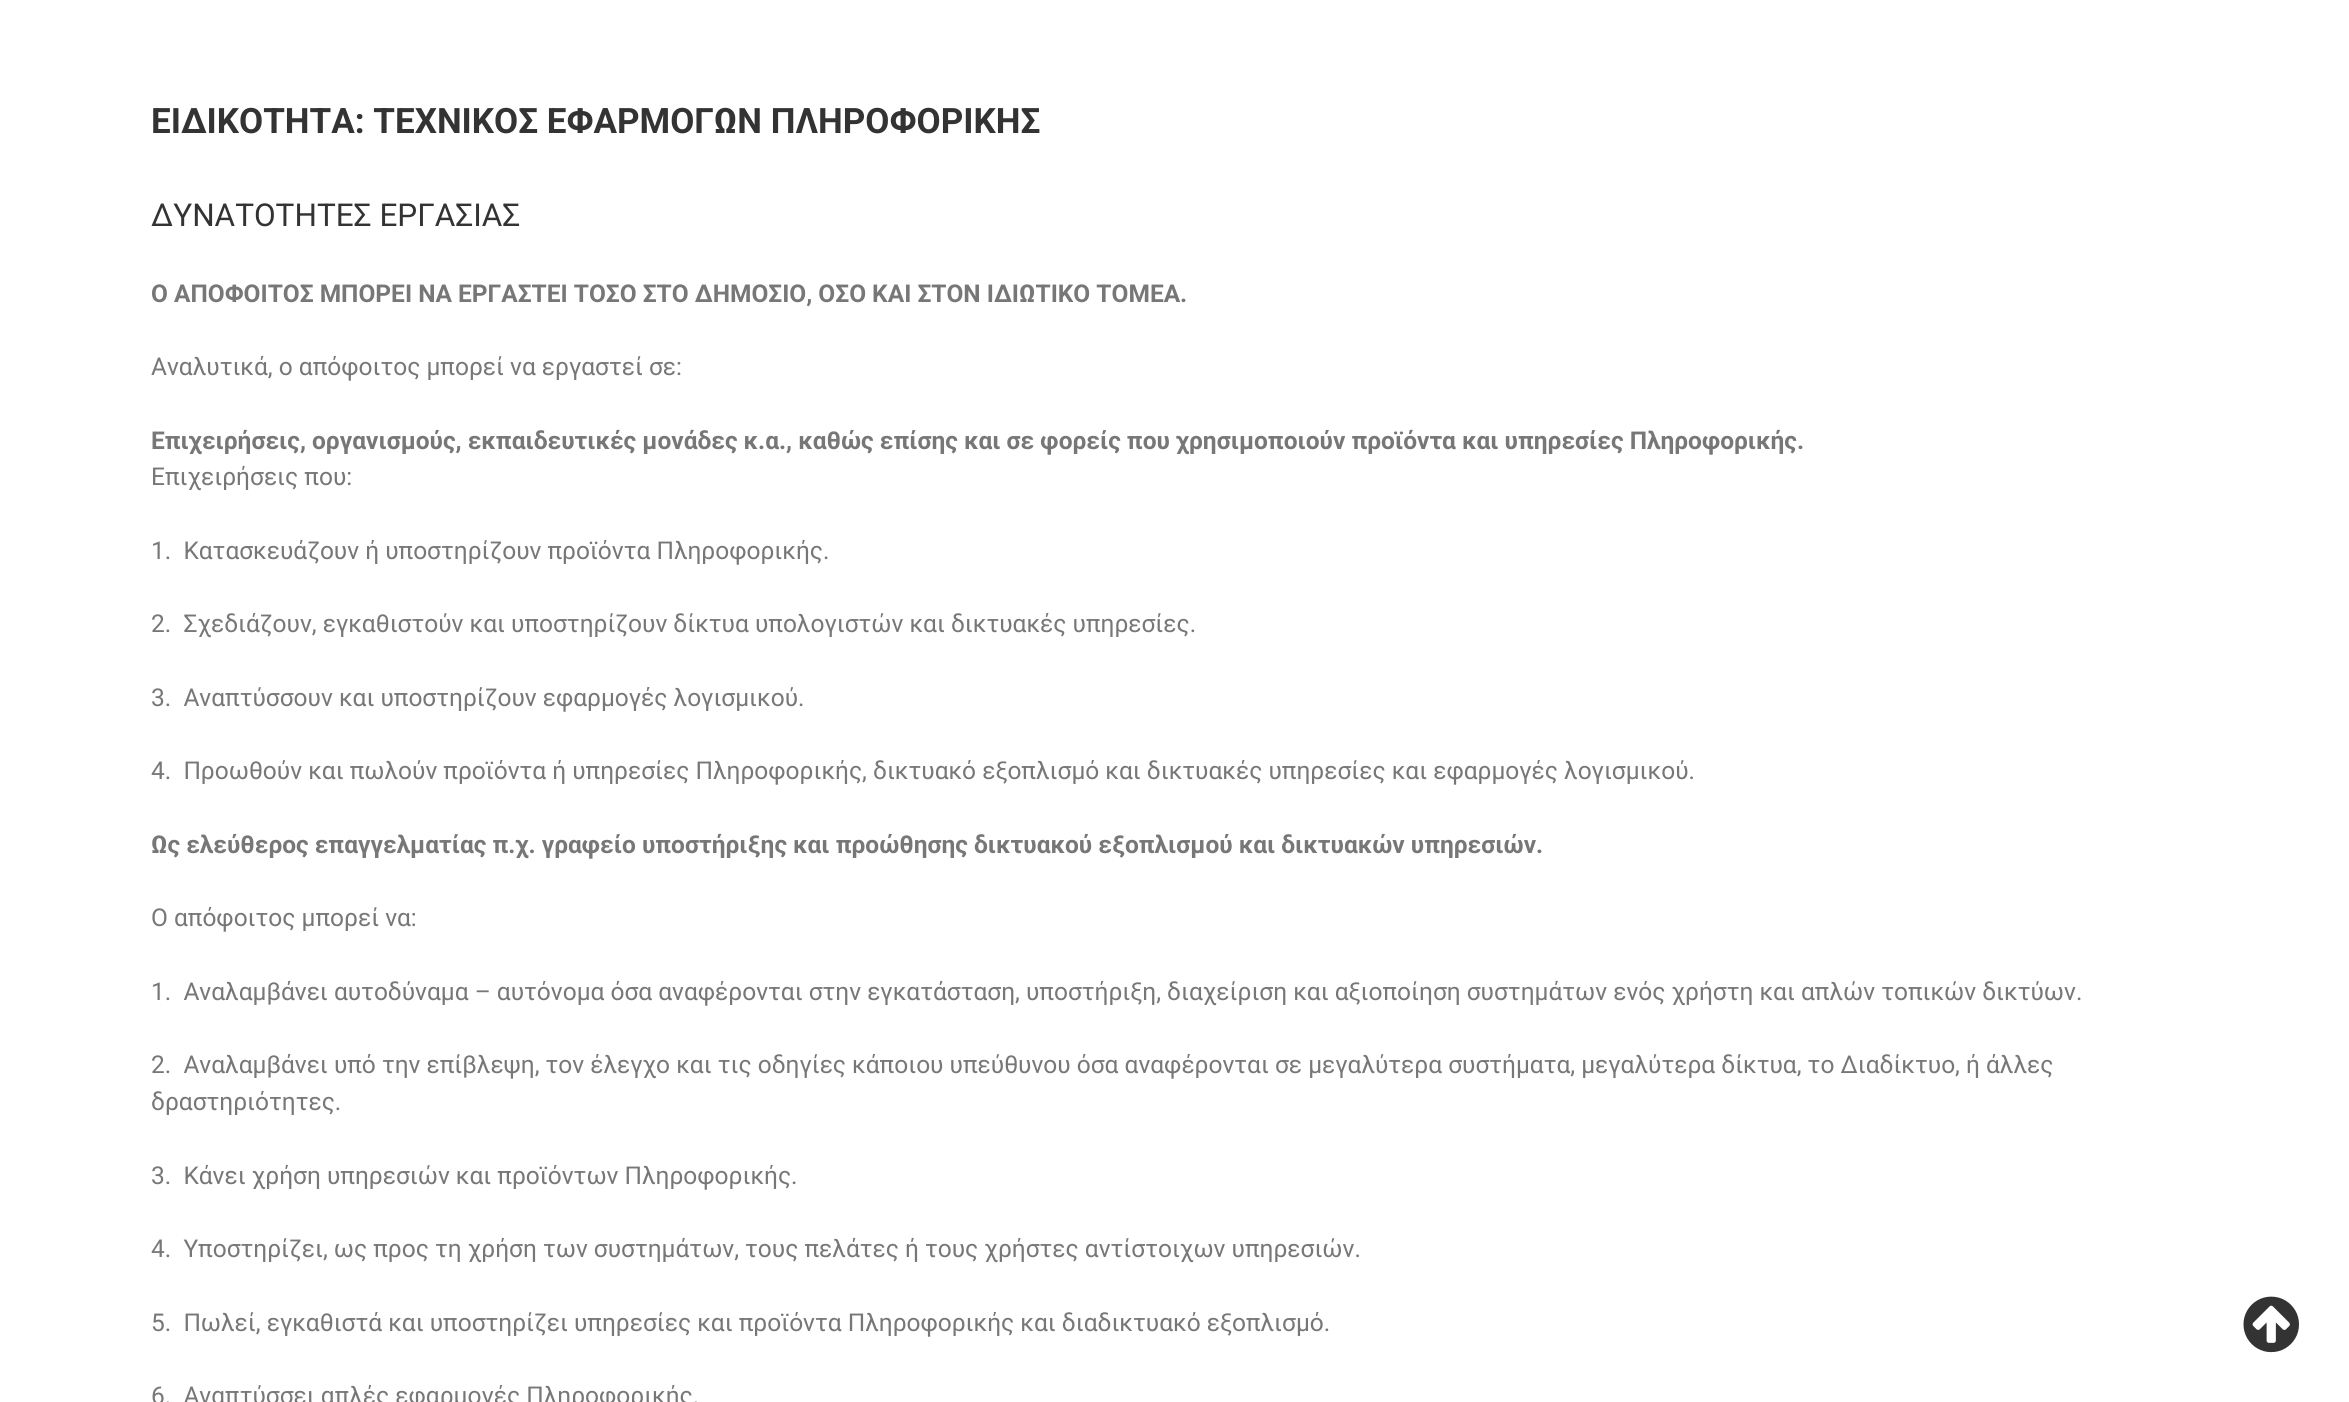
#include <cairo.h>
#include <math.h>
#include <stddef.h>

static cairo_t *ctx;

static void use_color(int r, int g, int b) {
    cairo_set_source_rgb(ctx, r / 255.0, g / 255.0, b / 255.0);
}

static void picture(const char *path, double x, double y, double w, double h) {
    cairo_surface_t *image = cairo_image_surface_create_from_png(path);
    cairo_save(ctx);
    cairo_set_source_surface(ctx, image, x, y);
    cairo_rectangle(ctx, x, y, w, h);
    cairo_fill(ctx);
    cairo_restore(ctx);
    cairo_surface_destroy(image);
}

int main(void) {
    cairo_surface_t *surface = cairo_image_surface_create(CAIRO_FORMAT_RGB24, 2349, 1402);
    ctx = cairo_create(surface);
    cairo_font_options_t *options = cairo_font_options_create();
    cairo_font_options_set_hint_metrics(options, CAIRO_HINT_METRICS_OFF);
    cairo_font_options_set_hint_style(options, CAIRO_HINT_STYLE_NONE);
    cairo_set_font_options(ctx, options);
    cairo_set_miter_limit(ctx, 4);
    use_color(255, 255, 255);
    cairo_paint(ctx);
    cairo_select_font_face(ctx, "Roboto", CAIRO_FONT_SLANT_NORMAL, CAIRO_FONT_WEIGHT_BOLD);
    cairo_set_font_size(ctx, 35);
    use_color(51, 51, 51);
    cairo_move_to(ctx, 151, 133);
    cairo_show_text(ctx, "ΕΙΔΙΚΟΤΗΤΑ: ΤΕΧΝΙΚΟΣ ΕΦΑΡΜΟΓΩΝ ΠΛΗΡΟΦΟΡΙΚΗΣ");
    cairo_select_font_face(ctx, "Roboto", CAIRO_FONT_SLANT_NORMAL, CAIRO_FONT_WEIGHT_NORMAL);
    cairo_set_font_size(ctx, 31.5);
    cairo_move_to(ctx, 151, 226);
    cairo_show_text(ctx, "ΔΥΝΑΤΟΤΗΤΕΣ ΕΡΓΑΣΙΑΣ");
    cairo_select_font_face(ctx, "Roboto", CAIRO_FONT_SLANT_NORMAL, CAIRO_FONT_WEIGHT_BOLD);
    cairo_set_font_size(ctx, 24.5);
    use_color(119, 119, 119);
    cairo_move_to(ctx, 151, 302);
    cairo_show_text(ctx, "Ο ΑΠΟΦΟΙΤΟΣ ΜΠΟΡΕΙ ΝΑ ΕΡΓΑΣΤΕΙ ΤΟΣΟ ΣΤΟ ΔΗΜΟΣΙΟ, ΟΣΟ ΚΑΙ ΣΤΟΝ ΙΔΙΩΤΙΚΟ ΤΟΜΕΑ.");
    cairo_select_font_face(ctx, "Roboto", CAIRO_FONT_SLANT_NORMAL, CAIRO_FONT_WEIGHT_NORMAL);
    cairo_move_to(ctx, 151, 375);
    cairo_show_text(ctx, "Αναλυτικά, ο απόφοιτος μπορεί να εργαστεί σε:");
    cairo_select_font_face(ctx, "Roboto", CAIRO_FONT_SLANT_NORMAL, CAIRO_FONT_WEIGHT_BOLD);
    cairo_move_to(ctx, 151, 449);
    cairo_show_text(ctx, "Επιχειρήσεις, οργανισμούς, εκπαιδευτικές μονάδες κ.α., καθώς επίσης και σε φορείς που χρησιμοποιούν προϊόντα και υπηρεσίες Πληροφορικής.");
    cairo_select_font_face(ctx, "Roboto", CAIRO_FONT_SLANT_NORMAL, CAIRO_FONT_WEIGHT_NORMAL);
    cairo_move_to(ctx, 151, 485);
    cairo_show_text(ctx, "Επιχειρήσεις που:");
    cairo_move_to(ctx, 151, 559);
    cairo_show_text(ctx, "1.  Κατασκευάζουν ή υποστηρίζουν προϊόντα Πληροφορικής.");
    cairo_move_to(ctx, 151, 632);
    cairo_show_text(ctx, "2.  Σχεδιάζουν, εγκαθιστούν και υποστηρίζουν δίκτυα υπολογιστών και δικτυακές υπηρεσίες.");
    cairo_move_to(ctx, 151, 706);
    cairo_show_text(ctx, "3.  Αναπτύσσουν και υποστηρίζουν εφαρμογές λογισμικού.");
    cairo_move_to(ctx, 151, 779);
    cairo_show_text(ctx, "4.  Προωθούν και πωλούν προϊόντα ή υπηρεσίες Πληροφορικής, δικτυακό εξοπλισμό και δικτυακές υπηρεσίες και εφαρμογές λογισμικού.");
    cairo_select_font_face(ctx, "Roboto", CAIRO_FONT_SLANT_NORMAL, CAIRO_FONT_WEIGHT_BOLD);
    cairo_move_to(ctx, 151, 853);
    cairo_show_text(ctx, "Ως ελεύθερος επαγγελματίας π.χ. γραφείο υποστήριξης και προώθησης δικτυακού εξοπλισμού και δικτυακών υπηρεσιών.");
    cairo_select_font_face(ctx, "Roboto", CAIRO_FONT_SLANT_NORMAL, CAIRO_FONT_WEIGHT_NORMAL);
    cairo_move_to(ctx, 151, 926);
    cairo_show_text(ctx, "Ο απόφοιτος μπορεί να:");
    cairo_move_to(ctx, 151, 1000);
    cairo_show_text(ctx, "1.  Αναλαμβάνει αυτοδύναμα – αυτόνομα όσα αναφέρονται στην εγκατάσταση, υποστήριξη, διαχείριση και αξιοποίηση συστημάτων ενός χρήστη και απλών τοπικών δικτύων.");
    cairo_move_to(ctx, 151, 1073);
    cairo_show_text(ctx, "2.  Αναλαμβάνει υπό την επίβλεψη, τον έλεγχο και τις οδηγίες κάποιου υπεύθυνου όσα αναφέρονται σε μεγαλύτερα συστήματα, μεγαλύτερα δίκτυα, το Διαδίκτυο, ή άλλες");
    cairo_move_to(ctx, 151, 1110);
    cairo_show_text(ctx, "δραστηριότητες.");
    cairo_move_to(ctx, 151, 1184);
    cairo_show_text(ctx, "3.  Κάνει χρήση υπηρεσιών και προϊόντων Πληροφορικής.");
    cairo_move_to(ctx, 151, 1257);
    cairo_show_text(ctx, "4.  Υποστηρίζει, ως προς τη χρήση των συστημάτων, τους πελάτες ή τους χρήστες αντίστοιχων υπηρεσιών.");
    cairo_move_to(ctx, 151, 1331);
    cairo_show_text(ctx, "5.  Πωλεί, εγκαθιστά και υποστηρίζει υπηρεσίες και προϊόντα Πληροφορικής και διαδικτυακό εξοπλισμό.");
    cairo_move_to(ctx, 151, 1404);
    cairo_show_text(ctx, "6.  Αναπτύσσει απλές εφαρμογές Πληροφορικής.");
    picture("img1.png", 2243, 1296, 56, 57);
    cairo_surface_write_to_png(surface, "result.png");
    cairo_font_options_destroy(options);
    cairo_destroy(ctx);
    cairo_surface_destroy(surface);
    return 0;
}
